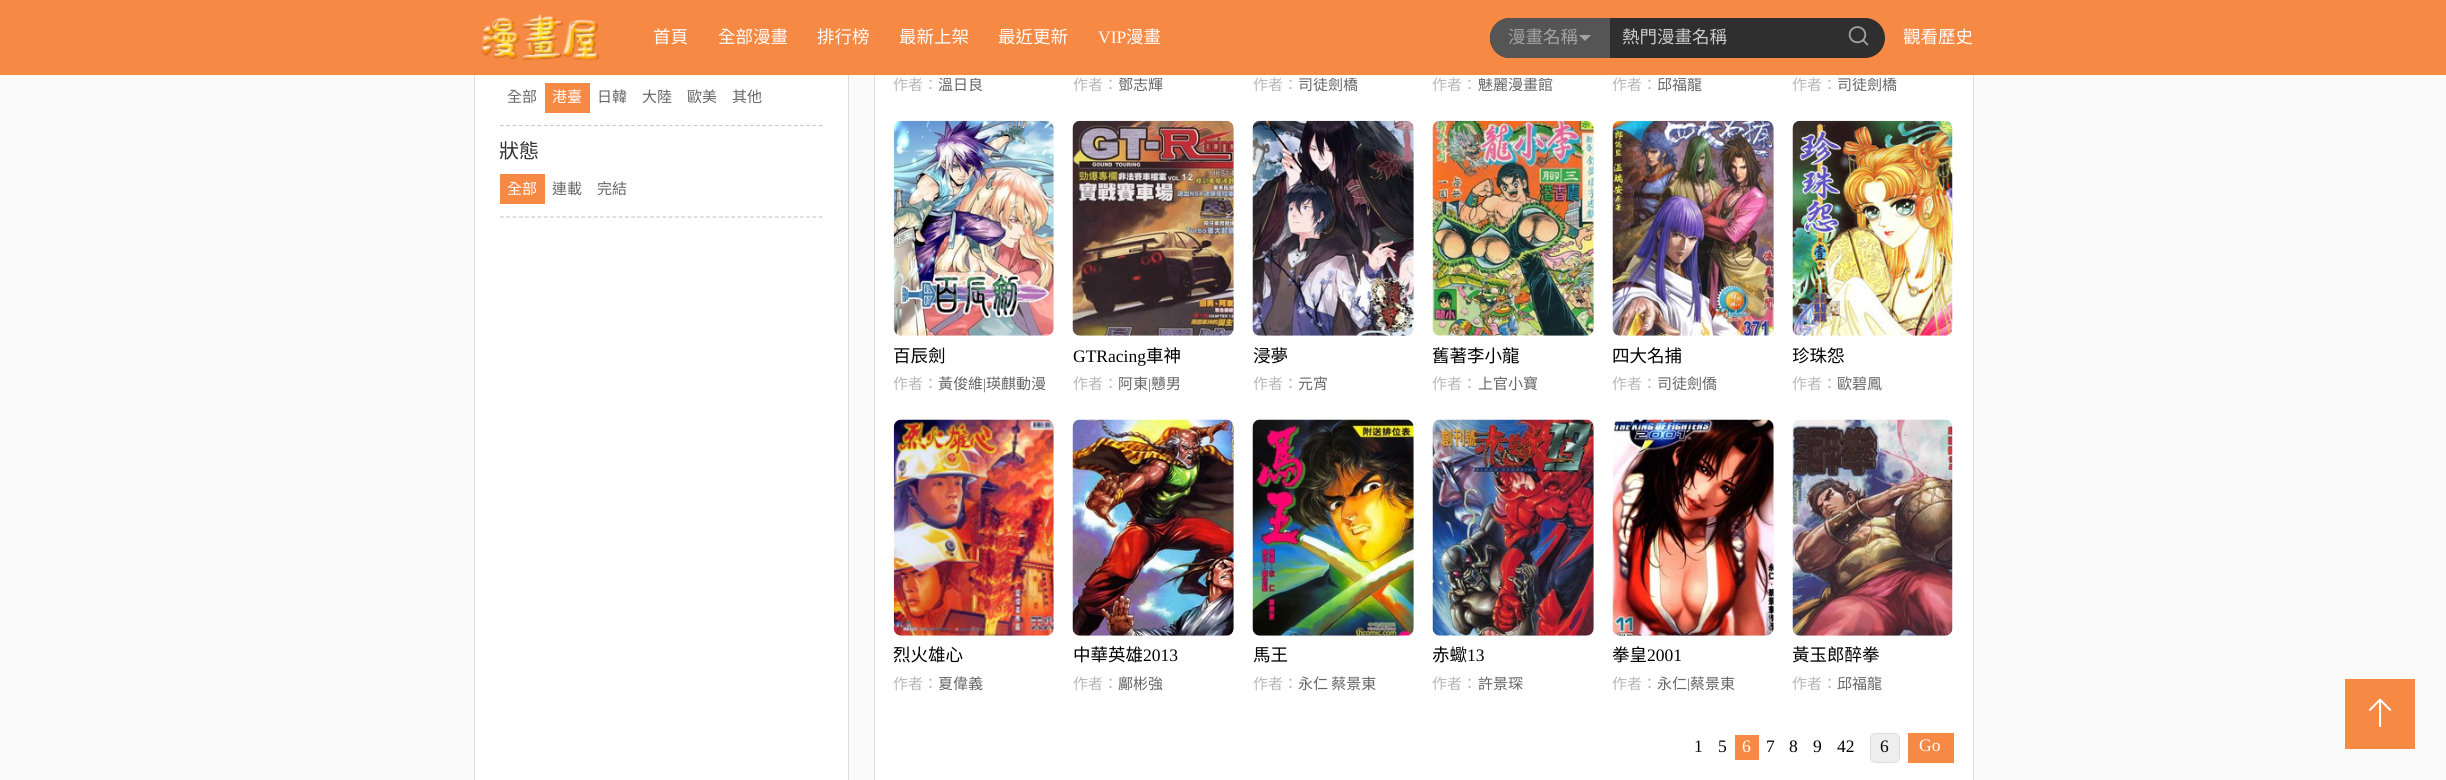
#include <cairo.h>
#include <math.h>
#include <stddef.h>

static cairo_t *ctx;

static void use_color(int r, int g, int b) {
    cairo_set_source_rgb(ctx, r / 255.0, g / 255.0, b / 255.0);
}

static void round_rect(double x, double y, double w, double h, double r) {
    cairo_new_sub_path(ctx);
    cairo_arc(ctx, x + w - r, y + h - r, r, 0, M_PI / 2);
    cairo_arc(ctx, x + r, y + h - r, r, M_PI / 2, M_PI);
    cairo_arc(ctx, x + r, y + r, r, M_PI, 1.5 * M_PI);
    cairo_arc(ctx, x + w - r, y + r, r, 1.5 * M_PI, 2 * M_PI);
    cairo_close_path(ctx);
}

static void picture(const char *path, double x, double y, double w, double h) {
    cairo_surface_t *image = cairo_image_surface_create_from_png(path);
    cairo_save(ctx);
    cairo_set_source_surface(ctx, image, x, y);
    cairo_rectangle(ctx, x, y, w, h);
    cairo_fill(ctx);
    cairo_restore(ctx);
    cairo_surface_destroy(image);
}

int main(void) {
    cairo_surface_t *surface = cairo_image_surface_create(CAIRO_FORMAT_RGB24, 2446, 780);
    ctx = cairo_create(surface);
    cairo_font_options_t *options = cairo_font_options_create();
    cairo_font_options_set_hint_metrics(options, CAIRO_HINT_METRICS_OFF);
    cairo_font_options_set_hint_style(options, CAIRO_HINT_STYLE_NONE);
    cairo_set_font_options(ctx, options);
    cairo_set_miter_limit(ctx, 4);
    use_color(250, 250, 250);
    cairo_paint(ctx);
    use_color(255, 255, 255);
    cairo_rectangle(ctx, 475, 75, 373, 705);
    cairo_fill(ctx);
    cairo_rectangle(ctx, 474.5, -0.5, 374, 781);
    use_color(221, 221, 221);
    cairo_set_line_width(ctx, 1);
    cairo_stroke(ctx);
    use_color(255, 255, 255);
    cairo_rectangle(ctx, 875, 75, 1098, 705);
    cairo_fill(ctx);
    cairo_rectangle(ctx, 874.5, -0.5, 1099, 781);
    use_color(221, 221, 221);
    cairo_stroke(ctx);
    use_color(246, 137, 68);
    cairo_rectangle(ctx, 0, 0, 2446, 75);
    cairo_fill(ctx);
    picture("img1.png", 481, 15, 118, 45);
    cairo_select_font_face(ctx, "Noto Sans CJK TC", CAIRO_FONT_SLANT_NORMAL, CAIRO_FONT_WEIGHT_NORMAL);
    cairo_set_font_size(ctx, 17.5);
    use_color(255, 255, 255);
    cairo_move_to(ctx, 653, 43);
    cairo_show_text(ctx, "首頁");
    cairo_move_to(ctx, 718, 43);
    cairo_show_text(ctx, "全部漫畫");
    cairo_move_to(ctx, 817, 43);
    cairo_show_text(ctx, "排行榜");
    cairo_move_to(ctx, 899, 43);
    cairo_show_text(ctx, "最新上架");
    cairo_move_to(ctx, 998, 43);
    cairo_show_text(ctx, "最近更新");
    cairo_select_font_face(ctx, "Liberation Serif", CAIRO_FONT_SLANT_NORMAL, CAIRO_FONT_WEIGHT_NORMAL);
    cairo_move_to(ctx, 1098, 43);
    cairo_show_text(ctx, "VIP");
    cairo_select_font_face(ctx, "Noto Sans CJK TC", CAIRO_FONT_SLANT_NORMAL, CAIRO_FONT_WEIGHT_NORMAL);
    cairo_move_to(ctx, 1126, 43);
    cairo_show_text(ctx, "漫畫");
    use_color(47, 47, 47);
    round_rect(1490, 18, 395, 40, 20);
    cairo_fill(ctx);
    use_color(85, 85, 85);
    cairo_new_path(ctx);
    cairo_move_to(ctx, 1510, 18);
    cairo_line_to(ctx, 1610, 18);
    cairo_line_to(ctx, 1610, 58);
    cairo_line_to(ctx, 1510, 58);
    cairo_curve_to(ctx, 1499, 58, 1490, 49, 1490, 38);
    cairo_curve_to(ctx, 1490, 27, 1499, 18, 1510, 18);
    cairo_close_path(ctx);
    cairo_fill(ctx);
    use_color(163, 163, 163);
    cairo_move_to(ctx, 1508, 43);
    cairo_show_text(ctx, "漫畫名稱");
    cairo_new_path(ctx);
    cairo_move_to(ctx, 1579, 35);
    cairo_line_to(ctx, 1591, 35);
    cairo_line_to(ctx, 1585, 41);
    cairo_close_path(ctx);
    cairo_fill(ctx);
    use_color(204, 204, 204);
    cairo_move_to(ctx, 1622, 43);
    cairo_show_text(ctx, "熱門漫畫名稱");
    picture("img2.png", 1848, 26, 21, 20);
    use_color(255, 255, 255);
    cairo_move_to(ctx, 1903, 43);
    cairo_show_text(ctx, "觀看歷史");
    cairo_new_path(ctx);
    cairo_move_to(ctx, 500, 125.5);
    cairo_line_to(ctx, 822.5, 125.5);
    use_color(204, 204, 204);
    cairo_set_line_width(ctx, 1.2);
    cairo_set_dash(ctx, (double[]){3.75, 2.5}, 2, 0);
    cairo_stroke(ctx);
    cairo_set_font_size(ctx, 15);
    use_color(102, 102, 102);
    cairo_move_to(ctx, 507, 102);
    cairo_show_text(ctx, "全部");
    use_color(246, 137, 68);
    cairo_rectangle(ctx, 545, 83, 45, 30);
    cairo_fill(ctx);
    use_color(255, 255, 255);
    cairo_move_to(ctx, 552, 102);
    cairo_show_text(ctx, "港臺");
    use_color(102, 102, 102);
    cairo_move_to(ctx, 597, 102);
    cairo_show_text(ctx, "日韓");
    cairo_move_to(ctx, 642, 102);
    cairo_show_text(ctx, "大陸");
    cairo_move_to(ctx, 687, 102);
    cairo_show_text(ctx, "歐美");
    cairo_move_to(ctx, 732, 102);
    cairo_show_text(ctx, "其他");
    cairo_new_path(ctx);
    cairo_move_to(ctx, 500, 217);
    cairo_line_to(ctx, 822.5, 217);
    use_color(204, 204, 204);
    cairo_stroke(ctx);
    cairo_set_font_size(ctx, 20);
    use_color(51, 51, 51);
    cairo_move_to(ctx, 499, 158);
    cairo_show_text(ctx, "狀態");
    use_color(246, 137, 68);
    cairo_rectangle(ctx, 500, 174, 45, 30);
    cairo_fill(ctx);
    cairo_set_font_size(ctx, 15);
    use_color(255, 255, 255);
    cairo_move_to(ctx, 507, 194);
    cairo_show_text(ctx, "全部");
    use_color(102, 102, 102);
    cairo_move_to(ctx, 552, 194);
    cairo_show_text(ctx, "連載");
    cairo_move_to(ctx, 597, 194);
    cairo_show_text(ctx, "完結");
    use_color(184, 184, 184);
    cairo_move_to(ctx, 893, 90);
    cairo_show_text(ctx, "作者：");
    cairo_save(ctx);
    cairo_rectangle(ctx, 939, 78, 115, 15);
    cairo_clip(ctx);
    use_color(102, 102, 102);
    cairo_move_to(ctx, 938, 90);
    cairo_show_text(ctx, "溫日良");
    cairo_restore(ctx);
    cairo_move_to(ctx, 1073, 90);
    cairo_show_text(ctx, "作者：");
    cairo_save(ctx);
    cairo_rectangle(ctx, 1118, 78, 116, 15);
    cairo_clip(ctx);
    use_color(102, 102, 102);
    cairo_move_to(ctx, 1118, 90);
    cairo_show_text(ctx, "鄧志輝");
    cairo_restore(ctx);
    cairo_move_to(ctx, 1253, 90);
    cairo_show_text(ctx, "作者：");
    cairo_save(ctx);
    cairo_rectangle(ctx, 1298, 78, 116, 15);
    cairo_clip(ctx);
    use_color(102, 102, 102);
    cairo_move_to(ctx, 1298, 90);
    cairo_show_text(ctx, "司徒劍橋");
    cairo_restore(ctx);
    cairo_move_to(ctx, 1432, 90);
    cairo_show_text(ctx, "作者：");
    cairo_save(ctx);
    cairo_rectangle(ctx, 1478, 78, 116, 15);
    cairo_clip(ctx);
    use_color(102, 102, 102);
    cairo_move_to(ctx, 1478, 90);
    cairo_show_text(ctx, "魅麗漫畫館");
    cairo_restore(ctx);
    cairo_move_to(ctx, 1612, 90);
    cairo_show_text(ctx, "作者：");
    cairo_save(ctx);
    cairo_rectangle(ctx, 1658, 78, 116, 15);
    cairo_clip(ctx);
    use_color(102, 102, 102);
    cairo_move_to(ctx, 1657, 90);
    cairo_show_text(ctx, "邱福龍");
    cairo_restore(ctx);
    cairo_move_to(ctx, 1792, 90);
    cairo_show_text(ctx, "作者：");
    cairo_save(ctx);
    cairo_rectangle(ctx, 1838, 78, 115, 15);
    cairo_clip(ctx);
    use_color(102, 102, 102);
    cairo_move_to(ctx, 1837, 90);
    cairo_show_text(ctx, "司徒劍橋");
    cairo_restore(ctx);
    picture("img3.png", 893, 120, 161, 216);
    cairo_set_font_size(ctx, 17.5);
    use_color(0, 0, 0);
    cairo_move_to(ctx, 893, 362);
    cairo_show_text(ctx, "百辰劍");
    cairo_set_font_size(ctx, 15);
    use_color(184, 184, 184);
    cairo_move_to(ctx, 893, 389);
    cairo_show_text(ctx, "作者：");
    use_color(102, 102, 102);
    cairo_move_to(ctx, 938, 389);
    cairo_show_text(ctx, "黃俊維");
    cairo_select_font_face(ctx, "Liberation Serif", CAIRO_FONT_SLANT_NORMAL, CAIRO_FONT_WEIGHT_NORMAL);
    cairo_move_to(ctx, 983, 389);
    cairo_show_text(ctx, "|");
    cairo_select_font_face(ctx, "Noto Sans CJK TC", CAIRO_FONT_SLANT_NORMAL, CAIRO_FONT_WEIGHT_NORMAL);
    cairo_move_to(ctx, 986, 389);
    cairo_show_text(ctx, "瑛麒動漫");
    picture("img4.png", 1072, 120, 162, 216);
    cairo_select_font_face(ctx, "Liberation Serif", CAIRO_FONT_SLANT_NORMAL, CAIRO_FONT_WEIGHT_NORMAL);
    cairo_set_font_size(ctx, 17.5);
    use_color(0, 0, 0);
    cairo_move_to(ctx, 1073, 362);
    cairo_show_text(ctx, "GTRacing");
    cairo_select_font_face(ctx, "Noto Sans CJK TC", CAIRO_FONT_SLANT_NORMAL, CAIRO_FONT_WEIGHT_NORMAL);
    cairo_move_to(ctx, 1146, 362);
    cairo_show_text(ctx, "車神");
    cairo_set_font_size(ctx, 15);
    use_color(184, 184, 184);
    cairo_move_to(ctx, 1073, 389);
    cairo_show_text(ctx, "作者：");
    use_color(102, 102, 102);
    cairo_move_to(ctx, 1118, 389);
    cairo_show_text(ctx, "阿東");
    cairo_select_font_face(ctx, "Liberation Serif", CAIRO_FONT_SLANT_NORMAL, CAIRO_FONT_WEIGHT_NORMAL);
    cairo_move_to(ctx, 1148, 389);
    cairo_show_text(ctx, "|");
    cairo_select_font_face(ctx, "Noto Sans CJK TC", CAIRO_FONT_SLANT_NORMAL, CAIRO_FONT_WEIGHT_NORMAL);
    cairo_move_to(ctx, 1151, 389);
    cairo_show_text(ctx, "戇男");
    picture("img5.png", 1252, 120, 162, 216);
    cairo_set_font_size(ctx, 17.5);
    use_color(0, 0, 0);
    cairo_move_to(ctx, 1253, 362);
    cairo_show_text(ctx, "浸夢");
    cairo_set_font_size(ctx, 15);
    use_color(184, 184, 184);
    cairo_move_to(ctx, 1253, 389);
    cairo_show_text(ctx, "作者：");
    use_color(102, 102, 102);
    cairo_move_to(ctx, 1298, 389);
    cairo_show_text(ctx, "元宵");
    picture("img6.png", 1432, 120, 162, 216);
    cairo_set_font_size(ctx, 17.5);
    use_color(0, 0, 0);
    cairo_move_to(ctx, 1432, 362);
    cairo_show_text(ctx, "舊著李小龍");
    cairo_set_font_size(ctx, 15);
    use_color(184, 184, 184);
    cairo_move_to(ctx, 1432, 389);
    cairo_show_text(ctx, "作者：");
    use_color(102, 102, 102);
    cairo_move_to(ctx, 1478, 389);
    cairo_show_text(ctx, "上官小寶");
    picture("img7.png", 1612, 120, 162, 216);
    cairo_set_font_size(ctx, 17.5);
    use_color(0, 0, 0);
    cairo_move_to(ctx, 1612, 362);
    cairo_show_text(ctx, "四大名捕");
    cairo_set_font_size(ctx, 15);
    use_color(184, 184, 184);
    cairo_move_to(ctx, 1612, 389);
    cairo_show_text(ctx, "作者：");
    use_color(102, 102, 102);
    cairo_move_to(ctx, 1657, 389);
    cairo_show_text(ctx, "司徒劍僑");
    picture("img8.png", 1792, 120, 161, 216);
    cairo_save(ctx);
    cairo_rectangle(ctx, 1793, 346, 160, 20);
    cairo_clip(ctx);
    cairo_set_font_size(ctx, 17.5);
    use_color(0, 0, 0);
    cairo_move_to(ctx, 1792, 362);
    cairo_show_text(ctx, "珍珠怨");
    cairo_restore(ctx);
    use_color(184, 184, 184);
    cairo_move_to(ctx, 1792, 389);
    cairo_show_text(ctx, "作者：");
    use_color(102, 102, 102);
    cairo_move_to(ctx, 1837, 389);
    cairo_show_text(ctx, "歐碧鳳");
    picture("img9.png", 893, 419, 161, 217);
    cairo_set_font_size(ctx, 17.5);
    use_color(0, 0, 0);
    cairo_move_to(ctx, 893, 661);
    cairo_show_text(ctx, "烈火雄心");
    cairo_set_font_size(ctx, 15);
    use_color(184, 184, 184);
    cairo_move_to(ctx, 893, 689);
    cairo_show_text(ctx, "作者：");
    use_color(102, 102, 102);
    cairo_move_to(ctx, 938, 689);
    cairo_show_text(ctx, "夏偉義");
    picture("img10.png", 1072, 419, 162, 217);
    cairo_set_font_size(ctx, 17.5);
    use_color(0, 0, 0);
    cairo_move_to(ctx, 1073, 661);
    cairo_show_text(ctx, "中華英雄");
    cairo_select_font_face(ctx, "Liberation Serif", CAIRO_FONT_SLANT_NORMAL, CAIRO_FONT_WEIGHT_NORMAL);
    cairo_move_to(ctx, 1143, 661);
    cairo_show_text(ctx, "2013");
    cairo_select_font_face(ctx, "Noto Sans CJK TC", CAIRO_FONT_SLANT_NORMAL, CAIRO_FONT_WEIGHT_NORMAL);
    cairo_set_font_size(ctx, 15);
    use_color(184, 184, 184);
    cairo_move_to(ctx, 1073, 689);
    cairo_show_text(ctx, "作者：");
    use_color(102, 102, 102);
    cairo_move_to(ctx, 1118, 689);
    cairo_show_text(ctx, "鄺彬強");
    picture("img11.png", 1252, 419, 162, 217);
    cairo_set_font_size(ctx, 17.5);
    use_color(0, 0, 0);
    cairo_move_to(ctx, 1253, 661);
    cairo_show_text(ctx, "馬王");
    cairo_set_font_size(ctx, 15);
    use_color(184, 184, 184);
    cairo_move_to(ctx, 1253, 689);
    cairo_show_text(ctx, "作者：");
    use_color(102, 102, 102);
    cairo_move_to(ctx, 1298, 689);
    cairo_show_text(ctx, "永仁 蔡景東");
    picture("img12.png", 1432, 419, 162, 217);
    cairo_set_font_size(ctx, 17.5);
    use_color(0, 0, 0);
    cairo_move_to(ctx, 1432, 661);
    cairo_show_text(ctx, "赤蠍");
    cairo_select_font_face(ctx, "Liberation Serif", CAIRO_FONT_SLANT_NORMAL, CAIRO_FONT_WEIGHT_NORMAL);
    cairo_move_to(ctx, 1467, 661);
    cairo_show_text(ctx, "13");
    cairo_select_font_face(ctx, "Noto Sans CJK TC", CAIRO_FONT_SLANT_NORMAL, CAIRO_FONT_WEIGHT_NORMAL);
    cairo_set_font_size(ctx, 15);
    use_color(184, 184, 184);
    cairo_move_to(ctx, 1432, 689);
    cairo_show_text(ctx, "作者：");
    use_color(102, 102, 102);
    cairo_move_to(ctx, 1478, 689);
    cairo_show_text(ctx, "許景琛");
    picture("img13.png", 1612, 419, 162, 217);
    cairo_set_font_size(ctx, 17.5);
    use_color(0, 0, 0);
    cairo_move_to(ctx, 1612, 661);
    cairo_show_text(ctx, "拳皇");
    cairo_select_font_face(ctx, "Liberation Serif", CAIRO_FONT_SLANT_NORMAL, CAIRO_FONT_WEIGHT_NORMAL);
    cairo_move_to(ctx, 1647, 661);
    cairo_show_text(ctx, "2001");
    cairo_select_font_face(ctx, "Noto Sans CJK TC", CAIRO_FONT_SLANT_NORMAL, CAIRO_FONT_WEIGHT_NORMAL);
    cairo_set_font_size(ctx, 15);
    use_color(184, 184, 184);
    cairo_move_to(ctx, 1612, 689);
    cairo_show_text(ctx, "作者：");
    use_color(102, 102, 102);
    cairo_move_to(ctx, 1657, 689);
    cairo_show_text(ctx, "永仁");
    cairo_save(ctx);
    cairo_rectangle(ctx, 1658, 676, 116, 15);
    cairo_clip(ctx);
    cairo_select_font_face(ctx, "Liberation Serif", CAIRO_FONT_SLANT_NORMAL, CAIRO_FONT_WEIGHT_NORMAL);
    cairo_move_to(ctx, 1687, 689);
    cairo_show_text(ctx, "|");
    cairo_restore(ctx);
    cairo_move_to(ctx, 1690, 689);
    cairo_show_text(ctx, "蔡景東");
    picture("img14.png", 1792, 419, 161, 217);
    cairo_set_font_size(ctx, 17.5);
    use_color(0, 0, 0);
    cairo_move_to(ctx, 1792, 661);
    cairo_show_text(ctx, "黃玉郎醉拳");
    cairo_set_font_size(ctx, 15);
    use_color(184, 184, 184);
    cairo_move_to(ctx, 1792, 689);
    cairo_show_text(ctx, "作者：");
    use_color(102, 102, 102);
    cairo_move_to(ctx, 1837, 689);
    cairo_show_text(ctx, "邱福龍");
    cairo_select_font_face(ctx, "Liberation Serif", CAIRO_FONT_SLANT_NORMAL, CAIRO_FONT_WEIGHT_NORMAL);
    cairo_set_font_size(ctx, 17.5);
    use_color(0, 0, 0);
    cairo_move_to(ctx, 1694, 752);
    cairo_show_text(ctx, "1");
    cairo_move_to(ctx, 1718, 752);
    cairo_show_text(ctx, "5");
    use_color(246, 137, 68);
    cairo_rectangle(ctx, 1735, 735, 24, 25);
    cairo_fill(ctx);
    use_color(255, 255, 255);
    cairo_move_to(ctx, 1742, 752);
    cairo_show_text(ctx, "6");
    use_color(0, 0, 0);
    cairo_move_to(ctx, 1766, 752);
    cairo_show_text(ctx, "7");
    cairo_move_to(ctx, 1789, 752);
    cairo_show_text(ctx, "8");
    cairo_move_to(ctx, 1813, 752);
    cairo_show_text(ctx, "9");
    cairo_move_to(ctx, 1837, 752);
    cairo_show_text(ctx, "42");
    use_color(238, 238, 238);
    round_rect(1870.5, 733.5, 29, 29, 5.5);
    cairo_fill_preserve(ctx);
    use_color(221, 221, 221);
    cairo_set_line_width(ctx, 1);
    cairo_set_dash(ctx, NULL, 0, 0);
    cairo_stroke(ctx);
    use_color(0, 0, 0);
    cairo_move_to(ctx, 1880, 752);
    cairo_show_text(ctx, "6");
    use_color(246, 137, 68);
    cairo_rectangle(ctx, 1908, 733, 46, 30);
    cairo_fill(ctx);
    use_color(255, 255, 255);
    cairo_move_to(ctx, 1919, 751);
    cairo_show_text(ctx, "Go");
    use_color(246, 137, 68);
    cairo_rectangle(ctx, 2345, 679, 70, 70);
    cairo_fill(ctx);
    picture("img15.png", 2368, 698, 24, 29);
    cairo_surface_write_to_png(surface, "result.png");
    cairo_font_options_destroy(options);
    cairo_destroy(ctx);
    cairo_surface_destroy(surface);
    return 0;
}
